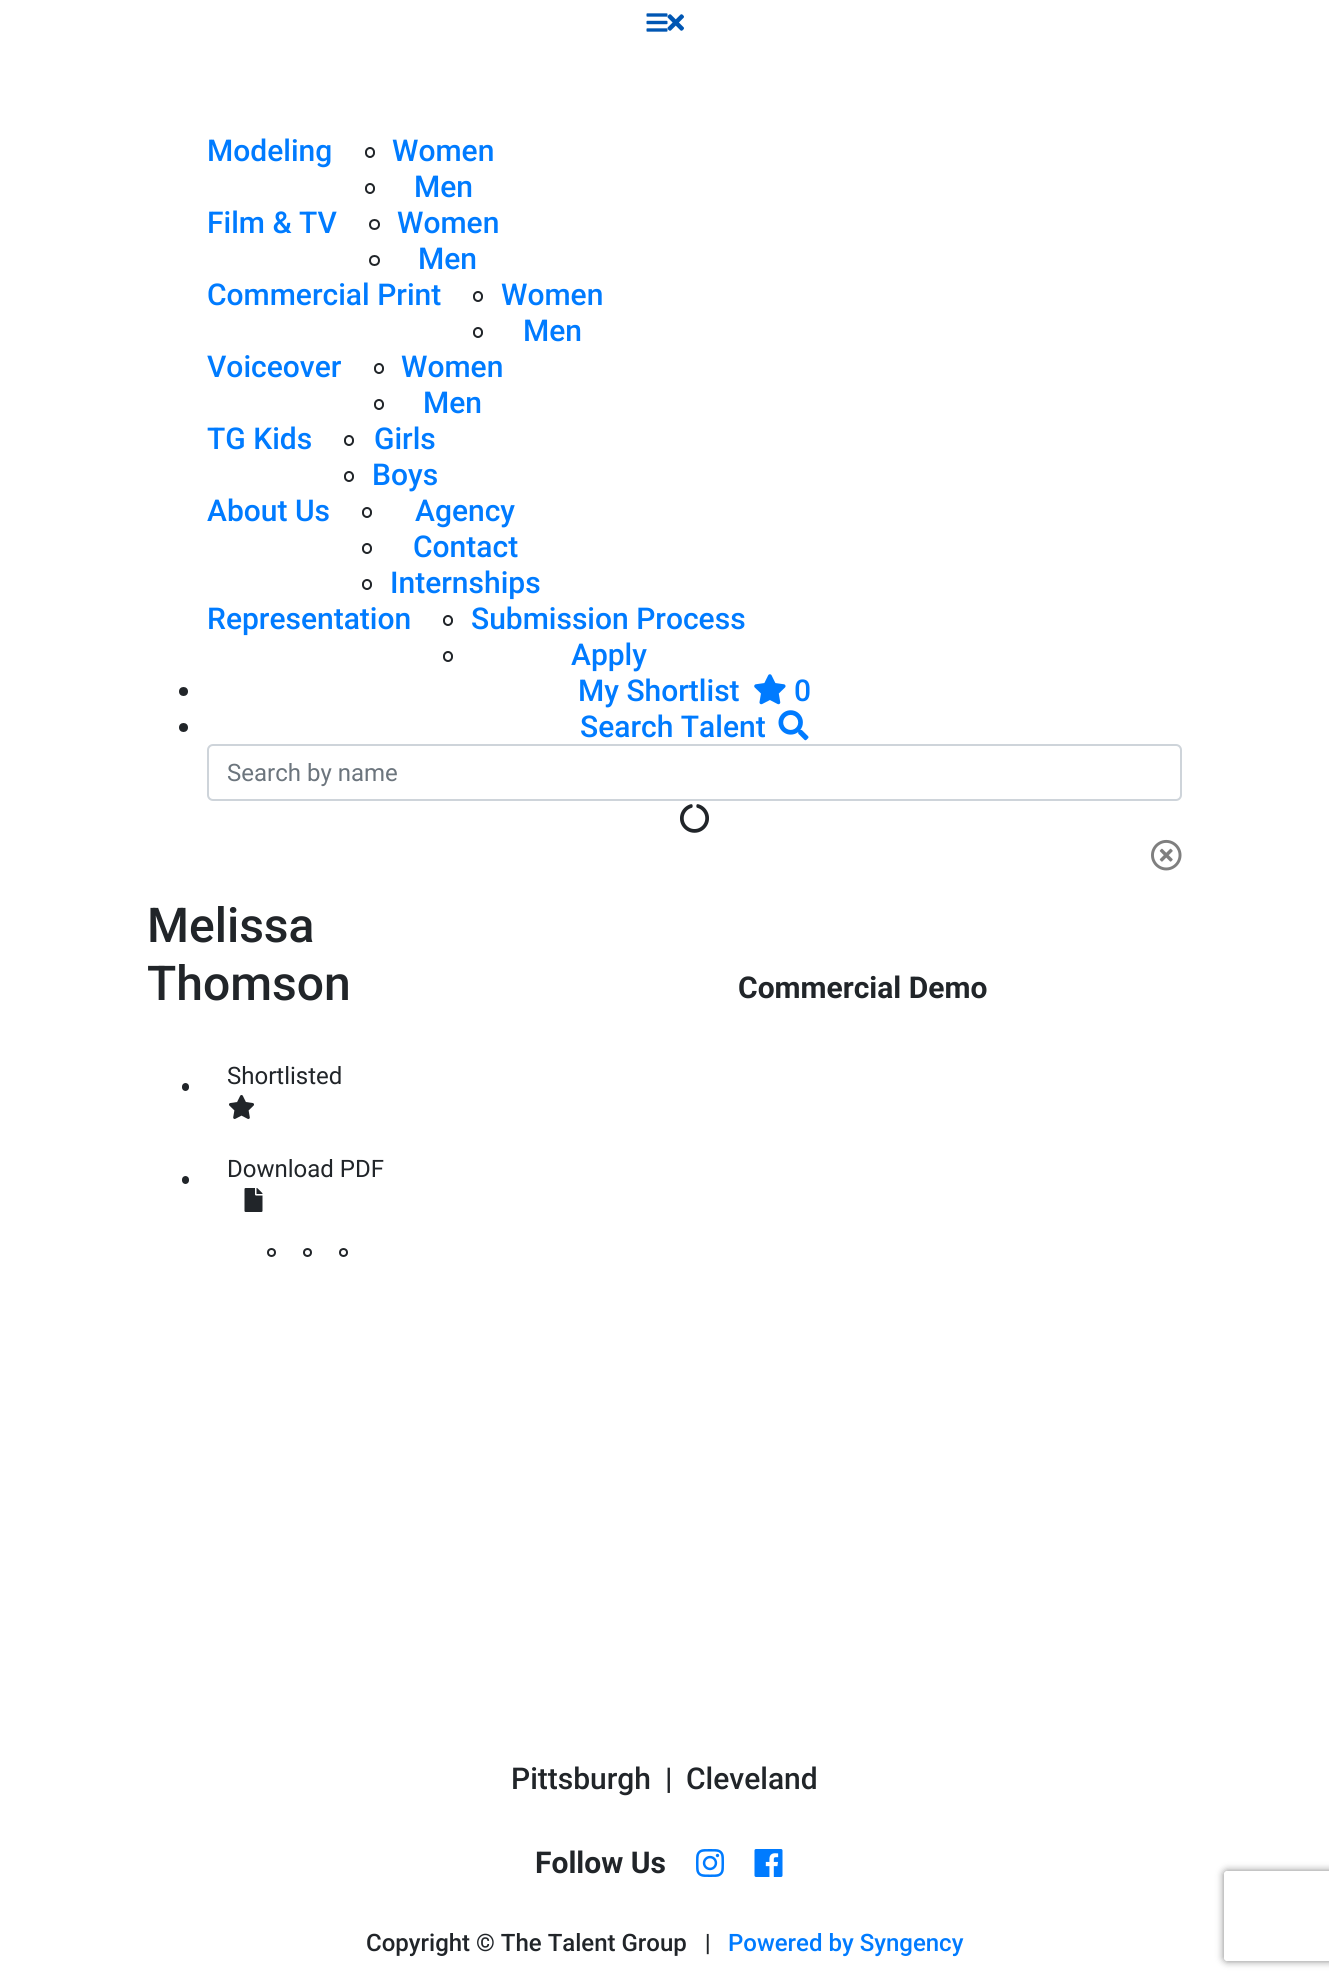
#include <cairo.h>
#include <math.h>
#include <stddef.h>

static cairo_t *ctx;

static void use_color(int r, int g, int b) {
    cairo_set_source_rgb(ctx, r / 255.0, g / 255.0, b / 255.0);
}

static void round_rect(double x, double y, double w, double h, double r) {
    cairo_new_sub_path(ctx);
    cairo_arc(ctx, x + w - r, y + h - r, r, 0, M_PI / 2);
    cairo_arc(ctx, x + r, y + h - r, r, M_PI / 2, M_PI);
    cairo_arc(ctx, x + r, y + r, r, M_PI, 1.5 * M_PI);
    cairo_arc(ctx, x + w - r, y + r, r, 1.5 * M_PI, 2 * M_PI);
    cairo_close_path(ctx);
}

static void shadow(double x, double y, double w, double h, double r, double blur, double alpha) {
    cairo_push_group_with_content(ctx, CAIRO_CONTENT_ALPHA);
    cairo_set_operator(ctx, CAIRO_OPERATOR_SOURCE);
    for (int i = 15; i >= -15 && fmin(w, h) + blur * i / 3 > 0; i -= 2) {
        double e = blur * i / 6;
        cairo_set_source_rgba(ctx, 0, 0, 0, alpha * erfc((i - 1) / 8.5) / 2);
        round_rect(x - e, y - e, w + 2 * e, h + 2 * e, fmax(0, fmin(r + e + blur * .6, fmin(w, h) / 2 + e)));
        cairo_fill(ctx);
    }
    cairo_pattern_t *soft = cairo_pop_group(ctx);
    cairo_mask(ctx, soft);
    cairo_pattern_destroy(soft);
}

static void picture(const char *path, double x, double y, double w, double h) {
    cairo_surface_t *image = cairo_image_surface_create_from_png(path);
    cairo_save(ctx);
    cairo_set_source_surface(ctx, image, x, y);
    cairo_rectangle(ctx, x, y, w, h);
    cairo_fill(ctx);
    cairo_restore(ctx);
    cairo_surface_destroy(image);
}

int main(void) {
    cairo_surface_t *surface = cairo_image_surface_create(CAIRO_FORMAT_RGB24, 1329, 1981);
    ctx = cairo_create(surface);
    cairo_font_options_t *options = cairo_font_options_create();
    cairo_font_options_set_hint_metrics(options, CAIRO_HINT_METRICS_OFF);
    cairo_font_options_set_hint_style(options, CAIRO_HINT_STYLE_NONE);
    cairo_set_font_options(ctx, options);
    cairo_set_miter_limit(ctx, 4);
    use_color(255, 255, 255);
    cairo_paint(ctx);
    picture("img1.png", 646, 13, 22, 19);
    picture("img2.png", 667, 14, 17, 17);
    cairo_select_font_face(ctx, "Roboto Medium", CAIRO_FONT_SLANT_NORMAL, CAIRO_FONT_WEIGHT_NORMAL);
    cairo_set_font_size(ctx, 30);
    use_color(0, 123, 255);
    cairo_move_to(ctx, 207, 161);
    cairo_show_text(ctx, "Modeling");
    round_rect(366, 148, 8, 9, 4);
    use_color(33, 37, 41);
    cairo_stroke(ctx);
    use_color(0, 123, 255);
    cairo_move_to(ctx, 392, 161);
    cairo_show_text(ctx, "Women");
    round_rect(366, 184, 8, 9, 4);
    use_color(33, 37, 41);
    cairo_stroke(ctx);
    use_color(0, 123, 255);
    cairo_move_to(ctx, 414, 197);
    cairo_show_text(ctx, "Men");
    cairo_move_to(ctx, 207, 233);
    cairo_show_text(ctx, "Film & TV");
    cairo_new_path(ctx);
    cairo_arc(ctx, 374.5, 224.5, 4.5, 0, 2 * M_PI);
    use_color(33, 37, 41);
    cairo_stroke(ctx);
    use_color(0, 123, 255);
    cairo_move_to(ctx, 397, 233);
    cairo_show_text(ctx, "Women");
    cairo_new_path(ctx);
    cairo_arc(ctx, 374.5, 260.5, 4.5, 0, 2 * M_PI);
    use_color(33, 37, 41);
    cairo_stroke(ctx);
    use_color(0, 123, 255);
    cairo_move_to(ctx, 418, 269);
    cairo_show_text(ctx, "Men");
    cairo_move_to(ctx, 207, 305);
    cairo_show_text(ctx, "Commercial Print");
    round_rect(474, 292, 8, 9, 4);
    use_color(33, 37, 41);
    cairo_stroke(ctx);
    use_color(0, 123, 255);
    cairo_move_to(ctx, 501, 305);
    cairo_show_text(ctx, "Women");
    round_rect(474, 328, 8, 9, 4);
    use_color(33, 37, 41);
    cairo_stroke(ctx);
    use_color(0, 123, 255);
    cairo_move_to(ctx, 523, 341);
    cairo_show_text(ctx, "Men");
    cairo_move_to(ctx, 207, 377);
    cairo_show_text(ctx, "Voiceover");
    round_rect(375, 364, 8, 9, 4);
    use_color(33, 37, 41);
    cairo_stroke(ctx);
    use_color(0, 123, 255);
    cairo_move_to(ctx, 401, 377);
    cairo_show_text(ctx, "Women");
    round_rect(375, 400, 8, 9, 4);
    use_color(33, 37, 41);
    cairo_stroke(ctx);
    use_color(0, 123, 255);
    cairo_move_to(ctx, 423, 413);
    cairo_show_text(ctx, "Men");
    cairo_move_to(ctx, 207, 449);
    cairo_show_text(ctx, "TG Kids");
    round_rect(345, 436, 8, 9, 4);
    use_color(33, 37, 41);
    cairo_stroke(ctx);
    use_color(0, 123, 255);
    cairo_move_to(ctx, 374, 449);
    cairo_show_text(ctx, "Girls");
    round_rect(345, 472, 8, 9, 4);
    use_color(33, 37, 41);
    cairo_stroke(ctx);
    use_color(0, 123, 255);
    cairo_move_to(ctx, 372, 485);
    cairo_show_text(ctx, "Boys");
    cairo_move_to(ctx, 207, 521);
    cairo_show_text(ctx, "About Us");
    round_rect(363, 508, 8, 9, 4);
    use_color(33, 37, 41);
    cairo_stroke(ctx);
    use_color(0, 123, 255);
    cairo_move_to(ctx, 415, 521);
    cairo_show_text(ctx, "Agency");
    round_rect(363, 544, 8, 9, 4);
    use_color(33, 37, 41);
    cairo_stroke(ctx);
    use_color(0, 123, 255);
    cairo_move_to(ctx, 413, 557);
    cairo_show_text(ctx, "Contact");
    round_rect(363, 580, 8, 9, 4);
    use_color(33, 37, 41);
    cairo_stroke(ctx);
    use_color(0, 123, 255);
    cairo_move_to(ctx, 390, 593);
    cairo_show_text(ctx, "Internships");
    cairo_move_to(ctx, 207, 629);
    cairo_show_text(ctx, "Representation");
    round_rect(444, 616, 8, 9, 4);
    use_color(33, 37, 41);
    cairo_stroke(ctx);
    use_color(0, 123, 255);
    cairo_move_to(ctx, 471, 629);
    cairo_show_text(ctx, "Submission Process");
    round_rect(444, 652, 8, 9, 4);
    use_color(33, 37, 41);
    cairo_stroke(ctx);
    use_color(0, 123, 255);
    cairo_move_to(ctx, 571, 665);
    cairo_show_text(ctx, "Apply");
    use_color(33, 37, 41);
    cairo_new_path(ctx);
    cairo_arc(ctx, 183.5, 691.5, 4.5, 0, 2 * M_PI);
    cairo_fill(ctx);
    use_color(0, 123, 255);
    cairo_move_to(ctx, 578, 701);
    cairo_show_text(ctx, "My Shortlist");
    picture("img3.png", 754, 674, 32, 31);
    cairo_move_to(ctx, 794, 701);
    cairo_show_text(ctx, "0");
    use_color(33, 37, 41);
    cairo_new_path(ctx);
    cairo_arc(ctx, 183.5, 727.5, 4.5, 0, 2 * M_PI);
    cairo_fill(ctx);
    use_color(0, 123, 255);
    cairo_move_to(ctx, 580, 737);
    cairo_show_text(ctx, "Search Talent");
    picture("img4.png", 778, 710, 31, 31);
    round_rect(208, 745, 973, 55, 5);
    use_color(206, 212, 218);
    cairo_stroke(ctx);
    cairo_select_font_face(ctx, "Roboto", CAIRO_FONT_SLANT_NORMAL, CAIRO_FONT_WEIGHT_NORMAL);
    cairo_set_font_size(ctx, 24);
    use_color(108, 117, 125);
    cairo_move_to(ctx, 227, 781);
    cairo_show_text(ctx, "Search by name");
    picture("img5.png", 680, 804, 29, 29);
    picture("img6.png", 1151, 839, 31, 32);
    cairo_select_font_face(ctx, "Roboto Medium", CAIRO_FONT_SLANT_NORMAL, CAIRO_FONT_WEIGHT_NORMAL);
    cairo_set_font_size(ctx, 48);
    use_color(33, 37, 41);
    cairo_move_to(ctx, 147, 942);
    cairo_show_text(ctx, "Melissa");
    cairo_move_to(ctx, 147, 1000);
    cairo_show_text(ctx, "Thomson");
    cairo_select_font_face(ctx, "Roboto", CAIRO_FONT_SLANT_NORMAL, CAIRO_FONT_WEIGHT_NORMAL);
    cairo_set_font_size(ctx, 24);
    cairo_move_to(ctx, 227, 1084);
    cairo_show_text(ctx, "Shortlisted");
    picture("img7.png", 229, 1095, 25, 24);
    round_rect(182, 1083, 7, 8, 3.5);
    cairo_fill(ctx);
    cairo_move_to(ctx, 227, 1177);
    cairo_show_text(ctx, "Download PDF");
    picture("img8.png", 244, 1188, 19, 24);
    round_rect(182, 1176, 7, 8, 3.5);
    cairo_fill(ctx);
    cairo_arc(ctx, 271.5, 1252.5, 3.5, 0, 2 * M_PI);
    cairo_stroke(ctx);
    cairo_arc(ctx, 307.5, 1252.5, 3.5, 0, 2 * M_PI);
    cairo_stroke(ctx);
    cairo_arc(ctx, 343.5, 1252.5, 3.5, 0, 2 * M_PI);
    cairo_stroke(ctx);
    cairo_select_font_face(ctx, "Roboto", CAIRO_FONT_SLANT_NORMAL, CAIRO_FONT_WEIGHT_BOLD);
    cairo_set_font_size(ctx, 30);
    cairo_move_to(ctx, 738, 998);
    cairo_show_text(ctx, "Commercial Demo");
    cairo_select_font_face(ctx, "Roboto Medium", CAIRO_FONT_SLANT_NORMAL, CAIRO_FONT_WEIGHT_NORMAL);
    cairo_move_to(ctx, 511, 1789);
    cairo_show_text(ctx, "Pittsburgh");
    cairo_move_to(ctx, 665, 1789);
    cairo_show_text(ctx, "|");
    cairo_move_to(ctx, 686, 1789);
    cairo_show_text(ctx, "Cleveland");
    cairo_select_font_face(ctx, "Roboto", CAIRO_FONT_SLANT_NORMAL, CAIRO_FONT_WEIGHT_BOLD);
    cairo_move_to(ctx, 535, 1873);
    cairo_show_text(ctx, "Follow Us");
    picture("img9.png", 696, 1849, 28, 28);
    picture("img10.png", 754, 1849, 29, 28);
    cairo_select_font_face(ctx, "Roboto Medium", CAIRO_FONT_SLANT_NORMAL, CAIRO_FONT_WEIGHT_NORMAL);
    cairo_set_font_size(ctx, 24);
    cairo_move_to(ctx, 366, 1951);
    cairo_show_text(ctx, "Copyright © The Talent Group   |");
    use_color(0, 123, 255);
    cairo_move_to(ctx, 728, 1951);
    cairo_show_text(ctx, "Powered by Syngency");
    cairo_save(ctx);
    cairo_set_fill_rule(ctx, CAIRO_FILL_RULE_EVEN_ODD);
    cairo_new_path(ctx);
    cairo_move_to(ctx, 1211, 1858);
    cairo_line_to(ctx, 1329, 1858);
    cairo_line_to(ctx, 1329, 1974);
    cairo_line_to(ctx, 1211, 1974);
    cairo_close_path(ctx);
    cairo_move_to(ctx, 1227, 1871);
    cairo_line_to(ctx, 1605, 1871);
    cairo_curve_to(ctx, 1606.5, 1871, 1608, 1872.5, 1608, 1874);
    cairo_line_to(ctx, 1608, 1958);
    cairo_curve_to(ctx, 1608, 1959.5, 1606.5, 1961, 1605, 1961);
    cairo_line_to(ctx, 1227, 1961);
    cairo_curve_to(ctx, 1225.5, 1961, 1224, 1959.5, 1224, 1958);
    cairo_line_to(ctx, 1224, 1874);
    cairo_curve_to(ctx, 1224, 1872.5, 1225.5, 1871, 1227, 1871);
    cairo_close_path(ctx);
    cairo_clip(ctx);
    use_color(128, 128, 128);
    shadow(1224, 1871, 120, 90, 3, 4, 1);
    cairo_restore(ctx);
    cairo_surface_write_to_png(surface, "result.png");
    cairo_font_options_destroy(options);
    cairo_destroy(ctx);
    cairo_surface_destroy(surface);
    return 0;
}
